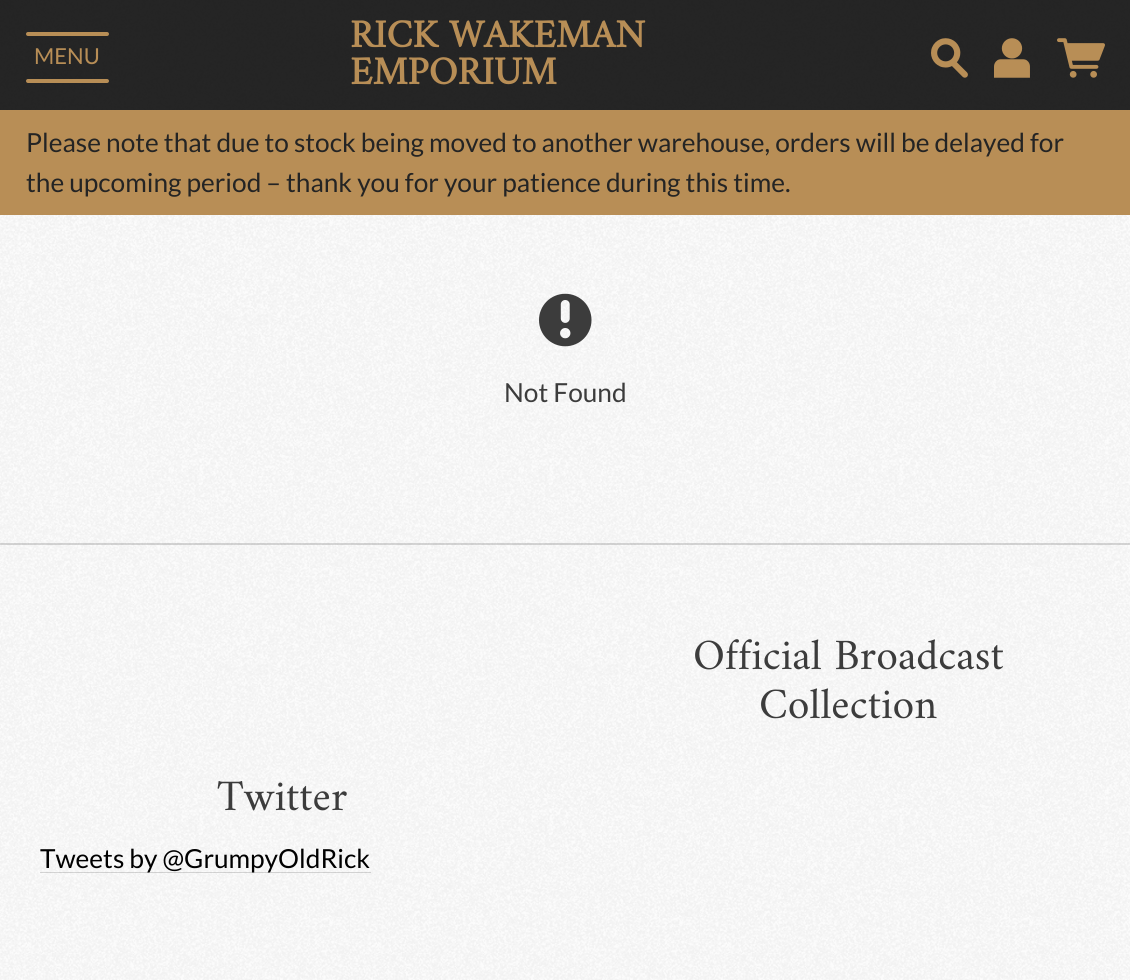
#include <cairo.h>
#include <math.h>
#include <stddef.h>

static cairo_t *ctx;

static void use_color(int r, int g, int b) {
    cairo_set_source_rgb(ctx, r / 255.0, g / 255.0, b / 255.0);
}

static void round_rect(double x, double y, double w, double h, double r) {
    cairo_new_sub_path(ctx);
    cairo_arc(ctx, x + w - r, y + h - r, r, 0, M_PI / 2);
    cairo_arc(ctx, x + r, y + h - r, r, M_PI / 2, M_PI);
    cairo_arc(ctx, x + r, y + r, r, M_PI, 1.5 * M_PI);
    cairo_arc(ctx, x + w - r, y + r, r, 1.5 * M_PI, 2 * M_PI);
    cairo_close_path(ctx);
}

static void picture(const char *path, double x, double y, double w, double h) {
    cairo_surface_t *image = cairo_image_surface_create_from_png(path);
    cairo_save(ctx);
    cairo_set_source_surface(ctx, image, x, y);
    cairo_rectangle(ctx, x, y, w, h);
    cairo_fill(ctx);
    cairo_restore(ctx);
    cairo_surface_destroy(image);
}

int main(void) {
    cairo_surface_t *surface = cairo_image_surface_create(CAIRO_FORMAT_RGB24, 1130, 980);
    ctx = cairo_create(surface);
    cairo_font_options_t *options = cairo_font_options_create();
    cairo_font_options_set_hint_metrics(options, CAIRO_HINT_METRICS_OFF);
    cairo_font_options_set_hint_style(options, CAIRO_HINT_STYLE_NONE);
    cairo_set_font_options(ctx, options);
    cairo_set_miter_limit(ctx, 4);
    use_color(255, 255, 255);
    cairo_paint(ctx);
    picture("img1.png", 0, 0, 1130, 980);
    cairo_set_source_rgba(ctx, 0, 0, 0, 0.85);
    cairo_rectangle(ctx, 0, 0, 1130, 4);
    cairo_fill(ctx);
    cairo_rectangle(ctx, 0, 4, 1130, 106);
    cairo_fill(ctx);
    use_color(184, 142, 86);
    round_rect(26, 32, 83, 4, 2);
    cairo_fill(ctx);
    round_rect(26, 79, 83, 4, 2);
    cairo_fill(ctx);
    cairo_select_font_face(ctx, "Lato", CAIRO_FONT_SLANT_NORMAL, CAIRO_FONT_WEIGHT_NORMAL);
    cairo_set_font_size(ctx, 22);
    cairo_move_to(ctx, 34, 64);
    cairo_show_text(ctx, "MENU");
    cairo_select_font_face(ctx, "Amiri", CAIRO_FONT_SLANT_NORMAL, CAIRO_FONT_WEIGHT_BOLD);
    cairo_set_font_size(ctx, 39.5);
    cairo_move_to(ctx, 350, 47);
    cairo_show_text(ctx, "RICK WAKEMAN");
    cairo_move_to(ctx, 350, 84);
    cairo_show_text(ctx, "EMPORIUM");
    picture("img2.png", 931, 38, 37, 40);
    picture("img3.png", 994, 38, 36, 40);
    picture("img4.png", 1057, 38, 48, 40);
    cairo_rectangle(ctx, 0, 110, 1130, 105);
    cairo_fill(ctx);
    cairo_select_font_face(ctx, "Lato", CAIRO_FONT_SLANT_NORMAL, CAIRO_FONT_WEIGHT_NORMAL);
    cairo_set_font_size(ctx, 26.25);
    use_color(36, 36, 36);
    cairo_move_to(ctx, 26, 152);
    cairo_show_text(ctx, "Please note that due to stock being moved to another warehouse, orders will be delayed for");
    cairo_move_to(ctx, 26, 192);
    cairo_show_text(ctx, "the upcoming period – thank you for your patience during this time.");
    picture("img5.png", 539, 293, 53, 54);
    use_color(60, 60, 60);
    cairo_move_to(ctx, 504, 402);
    cairo_show_text(ctx, "Not Found");
    cairo_set_source_rgba(ctx, 0.235, 0.235, 0.235, 0.2);
    cairo_rectangle(ctx, 0, 543, 1130, 2);
    cairo_fill(ctx);
    cairo_select_font_face(ctx, "Amiri", CAIRO_FONT_SLANT_NORMAL, CAIRO_FONT_WEIGHT_NORMAL);
    cairo_set_font_size(ctx, 43.75);
    use_color(60, 60, 60);
    cairo_move_to(ctx, 693, 669);
    cairo_show_text(ctx, "Official Broadcast");
    cairo_move_to(ctx, 759, 718);
    cairo_show_text(ctx, "Collection");
    cairo_move_to(ctx, 217, 810);
    cairo_show_text(ctx, "Twitter");
    cairo_set_source_rgba(ctx, 0.235, 0.235, 0.235, 0.2);
    cairo_rectangle(ctx, 40, 872, 331, 1);
    cairo_fill(ctx);
    cairo_select_font_face(ctx, "Lato", CAIRO_FONT_SLANT_NORMAL, CAIRO_FONT_WEIGHT_NORMAL);
    cairo_set_font_size(ctx, 26.25);
    use_color(0, 0, 0);
    cairo_move_to(ctx, 40, 868);
    cairo_show_text(ctx, "Tweets by @GrumpyOldRick");
    cairo_surface_write_to_png(surface, "result.png");
    cairo_font_options_destroy(options);
    cairo_destroy(ctx);
    cairo_surface_destroy(surface);
    return 0;
}
